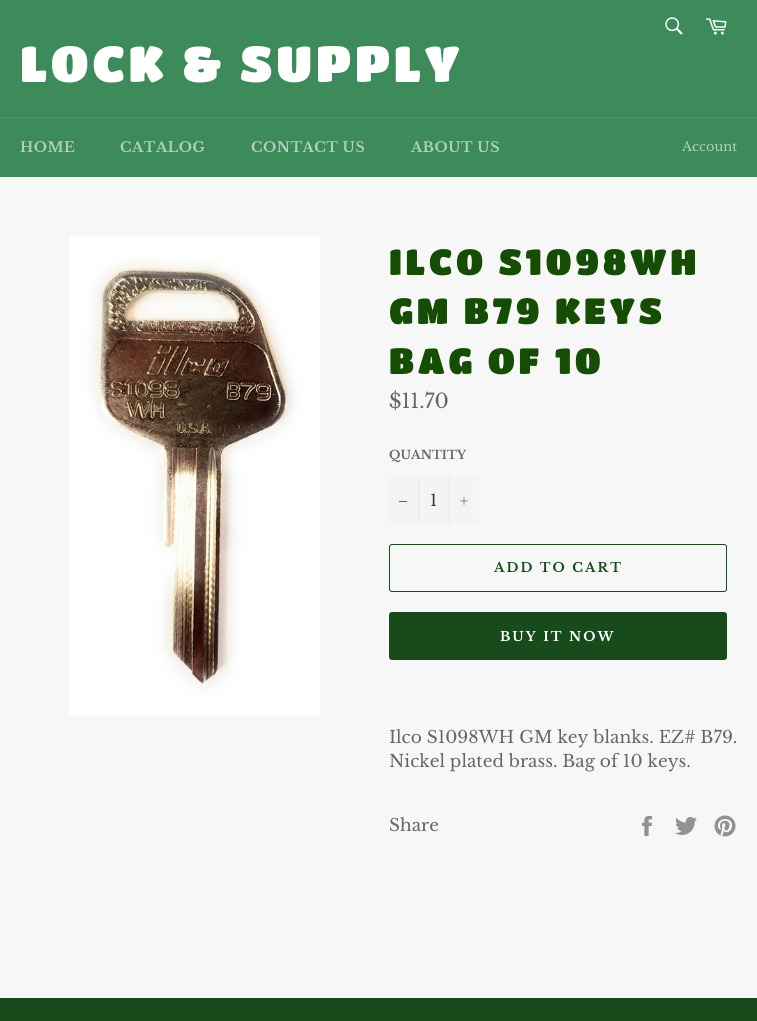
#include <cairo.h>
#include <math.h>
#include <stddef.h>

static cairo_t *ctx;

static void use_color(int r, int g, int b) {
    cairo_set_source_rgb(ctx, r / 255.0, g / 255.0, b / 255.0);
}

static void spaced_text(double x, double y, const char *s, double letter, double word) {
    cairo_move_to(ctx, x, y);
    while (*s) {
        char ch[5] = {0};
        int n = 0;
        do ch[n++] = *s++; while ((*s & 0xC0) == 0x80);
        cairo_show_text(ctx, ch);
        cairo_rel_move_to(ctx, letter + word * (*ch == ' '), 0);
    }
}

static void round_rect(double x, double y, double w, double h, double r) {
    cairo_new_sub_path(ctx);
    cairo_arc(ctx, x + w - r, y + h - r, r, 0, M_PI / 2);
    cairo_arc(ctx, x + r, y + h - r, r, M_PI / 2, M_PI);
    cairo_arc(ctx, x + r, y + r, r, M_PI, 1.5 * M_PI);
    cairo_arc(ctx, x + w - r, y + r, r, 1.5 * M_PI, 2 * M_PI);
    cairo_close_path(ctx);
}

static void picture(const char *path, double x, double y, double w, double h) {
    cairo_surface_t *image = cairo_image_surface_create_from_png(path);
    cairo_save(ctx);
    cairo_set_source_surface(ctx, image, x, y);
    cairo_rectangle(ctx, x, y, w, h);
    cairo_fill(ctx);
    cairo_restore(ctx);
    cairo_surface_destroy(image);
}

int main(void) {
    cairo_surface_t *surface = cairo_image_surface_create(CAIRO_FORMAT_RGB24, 757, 1021);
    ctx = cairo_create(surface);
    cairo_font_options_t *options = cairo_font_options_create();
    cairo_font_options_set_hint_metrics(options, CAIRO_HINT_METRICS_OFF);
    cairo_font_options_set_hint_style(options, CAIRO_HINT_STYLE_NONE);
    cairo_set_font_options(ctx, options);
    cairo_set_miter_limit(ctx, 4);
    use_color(247, 247, 247);
    cairo_paint(ctx);
    use_color(61, 138, 91);
    cairo_rectangle(ctx, 0, 0, 757, 117);
    cairo_fill(ctx);
    picture("img1.png", 665, 17, 18, 18);
    picture("img2.png", 705, 18, 22, 17);
    cairo_select_font_face(ctx, "Titan One", CAIRO_FONT_SLANT_NORMAL, CAIRO_FONT_WEIGHT_NORMAL);
    cairo_set_font_size(ctx, 50);
    use_color(255, 255, 255);
    spaced_text(20, 82, "LOCK & SUPPLY", 3.6, 0);
    use_color(61, 138, 91);
    cairo_rectangle(ctx, 0, 118, 757, 59);
    cairo_fill(ctx);
    use_color(69, 156, 103);
    cairo_rectangle(ctx, 0, 117, 757, 1);
    cairo_fill(ctx);
    cairo_select_font_face(ctx, "Libre Baskerville", CAIRO_FONT_SLANT_NORMAL, CAIRO_FONT_WEIGHT_BOLD);
    cairo_set_font_size(ctx, 14);
    use_color(177, 208, 189);
    spaced_text(20, 152, "HOME", 0.5, 0);
    spaced_text(120, 152, "CATALOG", 0.5, 0);
    spaced_text(251, 152, "CONTACT US", 0.5, 0);
    spaced_text(411, 152, "ABOUT US", 0.5, 0);
    cairo_select_font_face(ctx, "Libre Baskerville", CAIRO_FONT_SLANT_NORMAL, CAIRO_FONT_WEIGHT_NORMAL);
    cairo_set_font_size(ctx, 13);
    cairo_move_to(ctx, 682, 151);
    cairo_show_text(ctx, "Account");
    picture("img3.png", 69, 236, 251, 479);
    cairo_select_font_face(ctx, "Titan One", CAIRO_FONT_SLANT_NORMAL, CAIRO_FONT_WEIGHT_NORMAL);
    cairo_set_font_size(ctx, 36);
    use_color(20, 77, 3);
    spaced_text(389, 275, "ILCO S1098WH", 3.6, 0);
    spaced_text(389, 324, "GM B79 KEYS", 3.6, 0);
    spaced_text(389, 374, "BAG OF 10", 3.6, 0);
    cairo_select_font_face(ctx, "Libre Baskerville", CAIRO_FONT_SLANT_NORMAL, CAIRO_FONT_WEIGHT_NORMAL);
    cairo_set_font_size(ctx, 20);
    use_color(102, 102, 102);
    cairo_move_to(ctx, 389, 408);
    cairo_show_text(ctx, "$11.70");
    cairo_select_font_face(ctx, "Libre Baskerville", CAIRO_FONT_SLANT_NORMAL, CAIRO_FONT_WEIGHT_BOLD);
    cairo_set_font_size(ctx, 12);
    cairo_move_to(ctx, 389, 459);
    cairo_show_text(ctx, "QUANTITY");
    use_color(244, 244, 244);
    cairo_rectangle(ctx, 389, 476, 90, 48);
    cairo_fill(ctx);
    use_color(231, 231, 231);
    cairo_rectangle(ctx, 418, 476, 1, 48);
    cairo_fill(ctx);
    use_color(102, 102, 102);
    cairo_rectangle(ctx, 399, 501, 8, 1);
    cairo_fill(ctx);
    cairo_select_font_face(ctx, "Libre Baskerville", CAIRO_FONT_SLANT_NORMAL, CAIRO_FONT_WEIGHT_NORMAL);
    cairo_set_font_size(ctx, 16);
    use_color(51, 51, 51);
    cairo_move_to(ctx, 430, 506);
    cairo_show_text(ctx, "1");
    use_color(231, 231, 231);
    cairo_rectangle(ctx, 449, 476, 1, 48);
    cairo_fill(ctx);
    picture("img4.png", 460, 497, 8, 8);
    round_rect(389.5, 544.5, 337, 47, 2.5);
    use_color(23, 75, 27);
    cairo_set_line_width(ctx, 1);
    cairo_stroke(ctx);
    cairo_select_font_face(ctx, "Libre Baskerville", CAIRO_FONT_SLANT_NORMAL, CAIRO_FONT_WEIGHT_BOLD);
    cairo_set_font_size(ctx, 13);
    spaced_text(494, 572, "ADD TO CART", 2, 0);
    round_rect(389, 612, 338, 48, 3);
    cairo_fill(ctx);
    use_color(255, 255, 255);
    spaced_text(500, 641, "BUY IT NOW", 2, 0);
    cairo_select_font_face(ctx, "Libre Baskerville", CAIRO_FONT_SLANT_NORMAL, CAIRO_FONT_WEIGHT_NORMAL);
    cairo_set_font_size(ctx, 17);
    use_color(102, 102, 102);
    cairo_move_to(ctx, 389, 743);
    cairo_show_text(ctx, "Ilco S1098WH GM key blanks. EZ# B79.");
    cairo_move_to(ctx, 389, 767);
    cairo_show_text(ctx, "Nickel plated brass. Bag of 10 keys.");
    cairo_move_to(ctx, 389, 831);
    cairo_show_text(ctx, "Share");
    picture("img5.png", 642, 816, 10, 20);
    picture("img6.png", 675, 817, 22, 18);
    picture("img7.png", 714, 815, 22, 22);
    use_color(23, 75, 27);
    cairo_rectangle(ctx, 0, 998, 757, 23);
    cairo_fill(ctx);
    cairo_surface_write_to_png(surface, "result.png");
    cairo_font_options_destroy(options);
    cairo_destroy(ctx);
    cairo_surface_destroy(surface);
    return 0;
}
